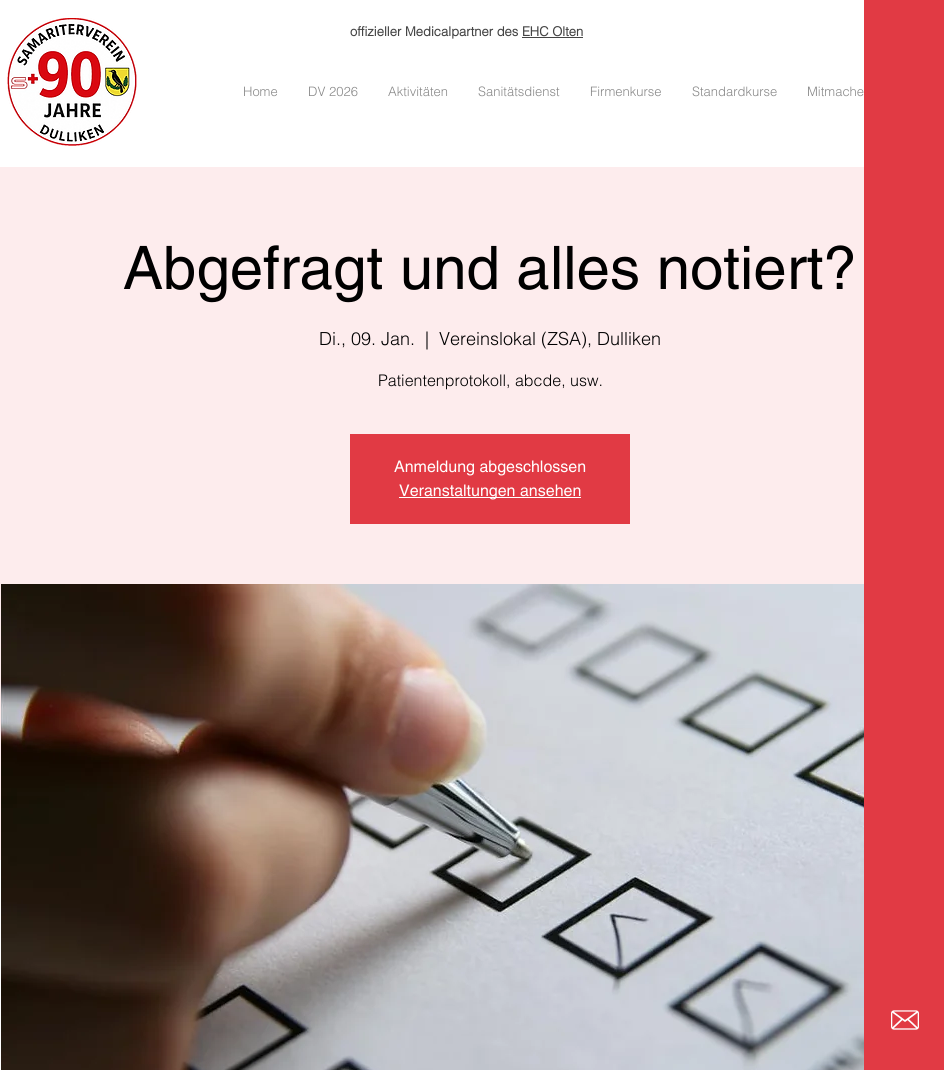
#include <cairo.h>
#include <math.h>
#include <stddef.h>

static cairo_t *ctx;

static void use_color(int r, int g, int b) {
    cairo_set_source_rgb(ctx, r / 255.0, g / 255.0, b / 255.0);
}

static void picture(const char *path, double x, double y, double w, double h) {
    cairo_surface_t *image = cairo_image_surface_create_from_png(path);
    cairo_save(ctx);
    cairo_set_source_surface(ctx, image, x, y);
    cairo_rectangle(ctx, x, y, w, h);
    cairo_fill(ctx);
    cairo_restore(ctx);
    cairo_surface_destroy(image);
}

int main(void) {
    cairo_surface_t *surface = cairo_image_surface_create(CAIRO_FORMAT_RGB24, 944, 1070);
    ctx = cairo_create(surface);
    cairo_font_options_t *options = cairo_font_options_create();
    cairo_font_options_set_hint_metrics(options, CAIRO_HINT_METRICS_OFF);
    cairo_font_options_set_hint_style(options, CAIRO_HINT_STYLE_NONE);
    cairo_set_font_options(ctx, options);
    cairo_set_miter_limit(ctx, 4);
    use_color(255, 255, 255);
    cairo_paint(ctx);
    picture("img1.png", 7, 18, 130, 128);
    cairo_select_font_face(ctx, "helvetica", CAIRO_FONT_SLANT_NORMAL, CAIRO_FONT_WEIGHT_BOLD);
    cairo_set_font_size(ctx, 13);
    use_color(68, 68, 68);
    cairo_move_to(ctx, 350, 36);
    cairo_show_text(ctx, "offizieller Medicalpartner des EHC Olten");
    cairo_rectangle(ctx, 522, 37, 61, 1);
    cairo_fill(ctx);
    cairo_select_font_face(ctx, "helvetica Light", CAIRO_FONT_SLANT_NORMAL, CAIRO_FONT_WEIGHT_NORMAL);
    use_color(136, 136, 136);
    cairo_move_to(ctx, 243, 96);
    cairo_show_text(ctx, "Home");
    cairo_move_to(ctx, 308, 96);
    cairo_show_text(ctx, "DV 2026");
    cairo_move_to(ctx, 388, 96);
    cairo_show_text(ctx, "Aktivitäten");
    cairo_move_to(ctx, 478, 96);
    cairo_show_text(ctx, "Sanitätsdienst");
    cairo_move_to(ctx, 590, 96);
    cairo_show_text(ctx, "Firmenkurse");
    cairo_move_to(ctx, 692, 96);
    cairo_show_text(ctx, "Standardkurse");
    cairo_move_to(ctx, 807, 96);
    cairo_show_text(ctx, "Mitmache");
    use_color(225, 58, 68);
    cairo_rectangle(ctx, 864, 0, 80, 1070);
    cairo_fill(ctx);
    use_color(253, 236, 237);
    cairo_rectangle(ctx, 0, 167, 864, 693);
    cairo_fill(ctx);
    cairo_select_font_face(ctx, "helvetica", CAIRO_FONT_SLANT_NORMAL, CAIRO_FONT_WEIGHT_NORMAL);
    cairo_set_font_size(ctx, 60);
    use_color(0, 0, 0);
    cairo_move_to(ctx, 123, 289);
    cairo_show_text(ctx, "Abgefragt und alles notiert?");
    cairo_select_font_face(ctx, "helvetica Light", CAIRO_FONT_SLANT_NORMAL, CAIRO_FONT_WEIGHT_NORMAL);
    cairo_set_font_size(ctx, 18);
    cairo_move_to(ctx, 319, 345);
    cairo_show_text(ctx, "Di., 09. Jan.");
    cairo_move_to(ctx, 425, 345);
    cairo_show_text(ctx, "|");
    cairo_move_to(ctx, 439, 345);
    cairo_show_text(ctx, "Vereinslokal (ZSA), Dulliken");
    cairo_set_font_size(ctx, 16);
    cairo_move_to(ctx, 378, 386);
    cairo_show_text(ctx, "Patientenprotokoll, abcde, usw.");
    use_color(225, 58, 68);
    cairo_rectangle(ctx, 350, 434, 280, 90);
    cairo_fill(ctx);
    cairo_select_font_face(ctx, "helvetica", CAIRO_FONT_SLANT_NORMAL, CAIRO_FONT_WEIGHT_NORMAL);
    use_color(255, 255, 255);
    cairo_move_to(ctx, 394, 472);
    cairo_show_text(ctx, "Anmeldung abgeschlossen");
    cairo_rectangle(ctx, 399, 497, 182, 1);
    cairo_fill(ctx);
    cairo_move_to(ctx, 399, 496);
    cairo_show_text(ctx, "Veranstaltungen ansehen");
    picture("img2.png", 1, 584, 863, 486);
    picture("img3.png", 891, 1010, 28, 20);
    cairo_surface_write_to_png(surface, "result.png");
    cairo_font_options_destroy(options);
    cairo_destroy(ctx);
    cairo_surface_destroy(surface);
    return 0;
}
